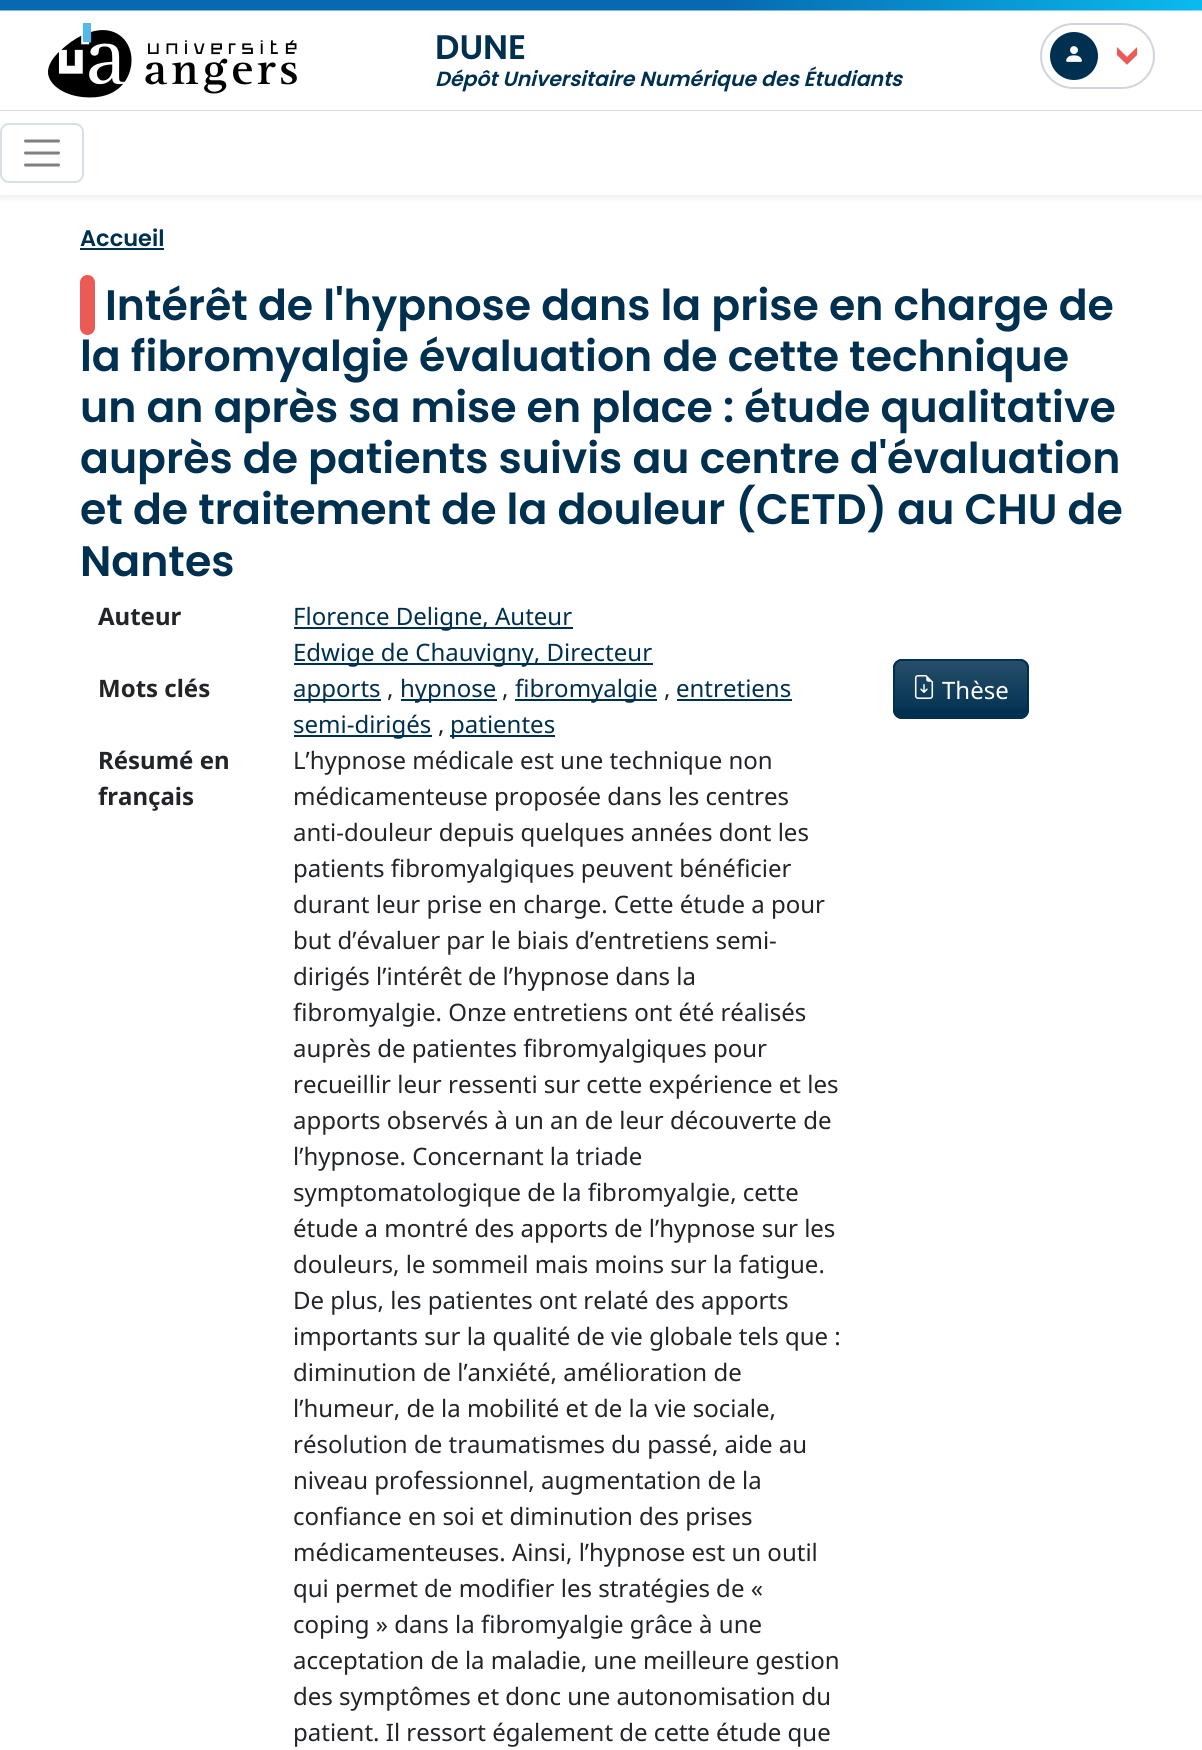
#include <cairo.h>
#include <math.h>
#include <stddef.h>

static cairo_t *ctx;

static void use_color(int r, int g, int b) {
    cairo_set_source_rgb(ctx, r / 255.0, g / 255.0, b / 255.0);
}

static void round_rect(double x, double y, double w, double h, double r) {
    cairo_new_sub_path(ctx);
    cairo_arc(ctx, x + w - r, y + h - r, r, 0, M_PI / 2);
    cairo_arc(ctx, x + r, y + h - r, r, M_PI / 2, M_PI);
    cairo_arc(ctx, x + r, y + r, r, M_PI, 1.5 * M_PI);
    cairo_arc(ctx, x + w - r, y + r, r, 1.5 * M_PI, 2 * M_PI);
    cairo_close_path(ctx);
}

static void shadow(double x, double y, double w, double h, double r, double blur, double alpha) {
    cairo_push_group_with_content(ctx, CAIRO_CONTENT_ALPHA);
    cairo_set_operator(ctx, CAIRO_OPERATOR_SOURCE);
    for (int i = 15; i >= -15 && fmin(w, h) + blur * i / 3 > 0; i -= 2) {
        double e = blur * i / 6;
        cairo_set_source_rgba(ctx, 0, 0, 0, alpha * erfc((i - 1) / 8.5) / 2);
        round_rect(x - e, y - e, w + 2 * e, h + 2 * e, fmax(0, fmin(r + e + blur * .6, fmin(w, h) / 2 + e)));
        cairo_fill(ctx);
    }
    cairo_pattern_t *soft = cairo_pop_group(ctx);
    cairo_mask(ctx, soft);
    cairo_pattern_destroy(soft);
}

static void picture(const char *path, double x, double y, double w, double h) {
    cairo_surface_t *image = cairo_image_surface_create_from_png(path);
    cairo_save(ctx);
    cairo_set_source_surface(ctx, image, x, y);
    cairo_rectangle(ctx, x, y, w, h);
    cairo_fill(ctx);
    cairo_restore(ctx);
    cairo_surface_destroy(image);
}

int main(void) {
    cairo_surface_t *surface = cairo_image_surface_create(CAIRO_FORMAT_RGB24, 1202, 1750);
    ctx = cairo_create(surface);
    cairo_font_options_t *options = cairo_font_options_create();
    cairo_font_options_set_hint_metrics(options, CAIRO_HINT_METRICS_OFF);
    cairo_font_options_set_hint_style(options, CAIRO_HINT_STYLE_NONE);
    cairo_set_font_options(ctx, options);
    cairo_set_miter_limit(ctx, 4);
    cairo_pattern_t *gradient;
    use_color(255, 255, 255);
    cairo_paint(ctx);
    picture("img1.png", 0, 0, 1202, 11);
    use_color(222, 226, 230);
    cairo_rectangle(ctx, 0, 110, 1202, 1);
    cairo_fill(ctx);
    picture("img2.png", 48, 23, 249, 75);
    cairo_select_font_face(ctx, "Poppins SemiBold", CAIRO_FONT_SLANT_NORMAL, CAIRO_FONT_WEIGHT_NORMAL);
    cairo_set_font_size(ctx, 34);
    use_color(0, 48, 80);
    cairo_move_to(ctx, 435, 59);
    cairo_show_text(ctx, "DUNE");
    cairo_select_font_face(ctx, "Poppins SemiBold", CAIRO_FONT_SLANT_ITALIC, CAIRO_FONT_WEIGHT_NORMAL);
    cairo_set_font_size(ctx, 20.5);
    cairo_move_to(ctx, 435, 86);
    cairo_show_text(ctx, "Dépôt Universitaire Numérique des Étudiants");
    round_rect(1041, 24, 113, 64, 32);
    use_color(209, 213, 219);
    cairo_stroke(ctx);
    use_color(0, 48, 80);
    cairo_arc(ctx, 1074, 56, 24, 0, 2 * M_PI);
    cairo_fill(ctx);
    picture("img3.png", 1066, 46, 16, 16);
    cairo_select_font_face(ctx, "Poppins SemiBold", CAIRO_FONT_SLANT_NORMAL, CAIRO_FONT_WEIGHT_NORMAL);
    cairo_set_font_size(ctx, 45);
    use_color(235, 91, 86);
    cairo_save(ctx);
    cairo_translate(ctx, 1111, 43);
    cairo_rotate(ctx, 90 * M_PI / 180);
    cairo_move_to(ctx, 0, 0);
    cairo_show_text(ctx, ">");
    cairo_restore(ctx);
    use_color(0, 0, 0);
    shadow(0, 114, 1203, 84, 0, 3, 0.07);
    use_color(255, 255, 255);
    cairo_rectangle(ctx, 0, 111, 1202, 84);
    cairo_fill(ctx);
    round_rect(1, 124, 82, 58, 8);
    use_color(217, 224, 229);
    cairo_stroke(ctx);
    cairo_new_path(ctx);
    cairo_move_to(ctx, 25.5, 141);
    cairo_line_to(ctx, 58.5, 141);
    cairo_move_to(ctx, 25.5, 153);
    cairo_line_to(ctx, 58.5, 153);
    cairo_move_to(ctx, 25.5, 165);
    cairo_line_to(ctx, 58.5, 165);
    use_color(128, 128, 128);
    cairo_set_line_width(ctx, 3);
    cairo_set_line_cap(ctx, CAIRO_LINE_CAP_ROUND);
    cairo_stroke(ctx);
    cairo_set_font_size(ctx, 22.5);
    use_color(0, 48, 80);
    cairo_move_to(ctx, 80, 246);
    cairo_show_text(ctx, "Accueil");
    cairo_rectangle(ctx, 80, 248, 84, 2);
    cairo_fill(ctx);
    use_color(235, 91, 86);
    round_rect(80, 275, 15, 60, 7.5);
    cairo_fill(ctx);
    cairo_set_font_size(ctx, 42.6);
    use_color(0, 48, 80);
    cairo_move_to(ctx, 105, 320);
    cairo_show_text(ctx, "Intérêt de l'hypnose dans la prise en charge de");
    cairo_move_to(ctx, 80, 371);
    cairo_show_text(ctx, "la fibromyalgie évaluation de cette technique");
    cairo_move_to(ctx, 80, 422);
    cairo_show_text(ctx, "un an après sa mise en place : étude qualitative");
    cairo_move_to(ctx, 80, 473);
    cairo_show_text(ctx, "auprès de patients suivis au centre d'évaluation");
    cairo_move_to(ctx, 80, 524);
    cairo_show_text(ctx, "et de traitement de la douleur (CETD) au CHU de");
    cairo_move_to(ctx, 80, 576);
    cairo_show_text(ctx, "Nantes");
    cairo_select_font_face(ctx, "Noto Sans", CAIRO_FONT_SLANT_NORMAL, CAIRO_FONT_WEIGHT_BOLD);
    cairo_set_font_size(ctx, 24);
    use_color(33, 37, 41);
    cairo_move_to(ctx, 98, 625);
    cairo_show_text(ctx, "Auteur");
    use_color(0, 48, 80);
    cairo_rectangle(ctx, 294, 627, 279, 2);
    cairo_fill(ctx);
    cairo_select_font_face(ctx, "Noto Sans", CAIRO_FONT_SLANT_NORMAL, CAIRO_FONT_WEIGHT_NORMAL);
    cairo_move_to(ctx, 293, 625);
    cairo_show_text(ctx, "Florence Deligne, Auteur");
    cairo_rectangle(ctx, 294, 663, 359, 2);
    cairo_fill(ctx);
    cairo_move_to(ctx, 293, 661);
    cairo_show_text(ctx, "Edwige de Chauvigny, Directeur");
    cairo_select_font_face(ctx, "Noto Sans", CAIRO_FONT_SLANT_NORMAL, CAIRO_FONT_WEIGHT_BOLD);
    use_color(33, 37, 41);
    cairo_move_to(ctx, 98, 697);
    cairo_show_text(ctx, "Mots clés");
    use_color(0, 48, 80);
    cairo_rectangle(ctx, 294, 699, 87, 2);
    cairo_fill(ctx);
    cairo_select_font_face(ctx, "Noto Sans", CAIRO_FONT_SLANT_NORMAL, CAIRO_FONT_WEIGHT_NORMAL);
    cairo_move_to(ctx, 293, 697);
    cairo_show_text(ctx, "apports");
    use_color(33, 37, 41);
    cairo_move_to(ctx, 387, 697);
    cairo_show_text(ctx, ",");
    use_color(0, 48, 80);
    cairo_rectangle(ctx, 401, 699, 96, 2);
    cairo_fill(ctx);
    cairo_move_to(ctx, 400, 697);
    cairo_show_text(ctx, "hypnose");
    use_color(33, 37, 41);
    cairo_move_to(ctx, 502, 697);
    cairo_show_text(ctx, ",");
    use_color(0, 48, 80);
    cairo_rectangle(ctx, 515, 699, 142, 2);
    cairo_fill(ctx);
    cairo_move_to(ctx, 515, 697);
    cairo_show_text(ctx, "fibromyalgie");
    use_color(33, 37, 41);
    cairo_move_to(ctx, 664, 697);
    cairo_show_text(ctx, ",");
    use_color(0, 48, 80);
    cairo_move_to(ctx, 676, 697);
    cairo_show_text(ctx, "entretiens");
    cairo_rectangle(ctx, 677, 699, 115, 2);
    cairo_fill(ctx);
    cairo_rectangle(ctx, 294, 735, 138, 2);
    cairo_fill(ctx);
    cairo_move_to(ctx, 293, 733);
    cairo_show_text(ctx, "semi-dirigés");
    use_color(33, 37, 41);
    cairo_move_to(ctx, 438, 733);
    cairo_show_text(ctx, ",");
    use_color(0, 48, 80);
    cairo_rectangle(ctx, 450, 735, 105, 2);
    cairo_fill(ctx);
    cairo_move_to(ctx, 450, 733);
    cairo_show_text(ctx, "patientes");
    cairo_select_font_face(ctx, "Noto Sans", CAIRO_FONT_SLANT_NORMAL, CAIRO_FONT_WEIGHT_BOLD);
    use_color(33, 37, 41);
    cairo_move_to(ctx, 98, 769);
    cairo_show_text(ctx, "Résumé en");
    cairo_move_to(ctx, 98, 805);
    cairo_show_text(ctx, "français");
    cairo_select_font_face(ctx, "Noto Sans", CAIRO_FONT_SLANT_NORMAL, CAIRO_FONT_WEIGHT_NORMAL);
    cairo_move_to(ctx, 293, 769);
    cairo_show_text(ctx, "L’hypnose médicale est une technique non");
    cairo_move_to(ctx, 293, 805);
    cairo_show_text(ctx, "médicamenteuse proposée dans les centres");
    cairo_move_to(ctx, 293, 841);
    cairo_show_text(ctx, "anti-douleur depuis quelques années dont les");
    cairo_move_to(ctx, 293, 877);
    cairo_show_text(ctx, "patients fibromyalgiques peuvent bénéficier");
    cairo_move_to(ctx, 293, 913);
    cairo_show_text(ctx, "durant leur prise en charge. Cette étude a pour");
    cairo_move_to(ctx, 293, 949);
    cairo_show_text(ctx, "but d’évaluer par le biais d’entretiens semi-");
    cairo_move_to(ctx, 293, 985);
    cairo_show_text(ctx, "dirigés l’intérêt de l’hypnose dans la");
    cairo_move_to(ctx, 293, 1021);
    cairo_show_text(ctx, "fibromyalgie. Onze entretiens ont été réalisés");
    cairo_move_to(ctx, 293, 1057);
    cairo_show_text(ctx, "auprès de patientes fibromyalgiques pour");
    cairo_move_to(ctx, 293, 1093);
    cairo_show_text(ctx, "recueillir leur ressenti sur cette expérience et les");
    cairo_move_to(ctx, 293, 1129);
    cairo_show_text(ctx, "apports observés à un an de leur découverte de");
    cairo_move_to(ctx, 293, 1165);
    cairo_show_text(ctx, "l’hypnose. Concernant la triade");
    cairo_move_to(ctx, 293, 1201);
    cairo_show_text(ctx, "symptomatologique de la fibromyalgie, cette");
    cairo_move_to(ctx, 293, 1237);
    cairo_show_text(ctx, "étude a montré des apports de l’hypnose sur les");
    cairo_move_to(ctx, 293, 1273);
    cairo_show_text(ctx, "douleurs, le sommeil mais moins sur la fatigue.");
    cairo_move_to(ctx, 293, 1309);
    cairo_show_text(ctx, "De plus, les patientes ont relaté des apports");
    cairo_move_to(ctx, 293, 1345);
    cairo_show_text(ctx, "importants sur la qualité de vie globale tels que :");
    cairo_move_to(ctx, 293, 1381);
    cairo_show_text(ctx, "diminution de l’anxiété, amélioration de");
    cairo_move_to(ctx, 293, 1417);
    cairo_show_text(ctx, "l’humeur, de la mobilité et de la vie sociale,");
    cairo_move_to(ctx, 293, 1453);
    cairo_show_text(ctx, "résolution de traumatismes du passé, aide au");
    cairo_move_to(ctx, 293, 1489);
    cairo_show_text(ctx, "niveau professionnel, augmentation de la");
    cairo_move_to(ctx, 293, 1525);
    cairo_show_text(ctx, "confiance en soi et diminution des prises");
    cairo_move_to(ctx, 293, 1561);
    cairo_show_text(ctx, "médicamenteuses. Ainsi, l’hypnose est un outil");
    cairo_move_to(ctx, 293, 1597);
    cairo_show_text(ctx, "qui permet de modifier les stratégies de «");
    cairo_move_to(ctx, 293, 1633);
    cairo_show_text(ctx, "coping » dans la fibromyalgie grâce à une");
    cairo_move_to(ctx, 293, 1669);
    cairo_show_text(ctx, "acceptation de la maladie, une meilleure gestion");
    cairo_move_to(ctx, 293, 1705);
    cairo_show_text(ctx, "des symptômes et donc une autonomisation du");
    cairo_move_to(ctx, 293, 1741);
    cairo_show_text(ctx, "patient. Il ressort également de cette étude que");
    use_color(0, 48, 80);
    round_rect(893, 659, 136, 60, 9);
    cairo_fill(ctx);
    cairo_save(ctx);
    round_rect(893, 659, 136, 60, 9);
    cairo_clip(ctx);
    gradient = cairo_pattern_create_linear(961, 660, 961, 717);
    cairo_pattern_add_color_stop_rgba(gradient, 0, 1, 1, 1, 0.15);
    cairo_pattern_add_color_stop_rgba(gradient, 1, 1, 1, 1, 0);
    cairo_set_source(ctx, gradient);
    cairo_pattern_destroy(gradient);
    cairo_rectangle(ctx, 894, 660, 134, 49);
    cairo_fill(ctx);
    cairo_restore(ctx);
    round_rect(894, 660, 134, 58, 8);
    cairo_set_line_width(ctx, 2);
    cairo_set_line_cap(ctx, CAIRO_LINE_CAP_BUTT);
    cairo_stroke(ctx);
    picture("img4.png", 914, 675, 20, 24);
    use_color(255, 255, 255);
    cairo_move_to(ctx, 942, 699);
    cairo_show_text(ctx, "Thèse");
    cairo_surface_write_to_png(surface, "result.png");
    cairo_font_options_destroy(options);
    cairo_destroy(ctx);
    cairo_surface_destroy(surface);
    return 0;
}
